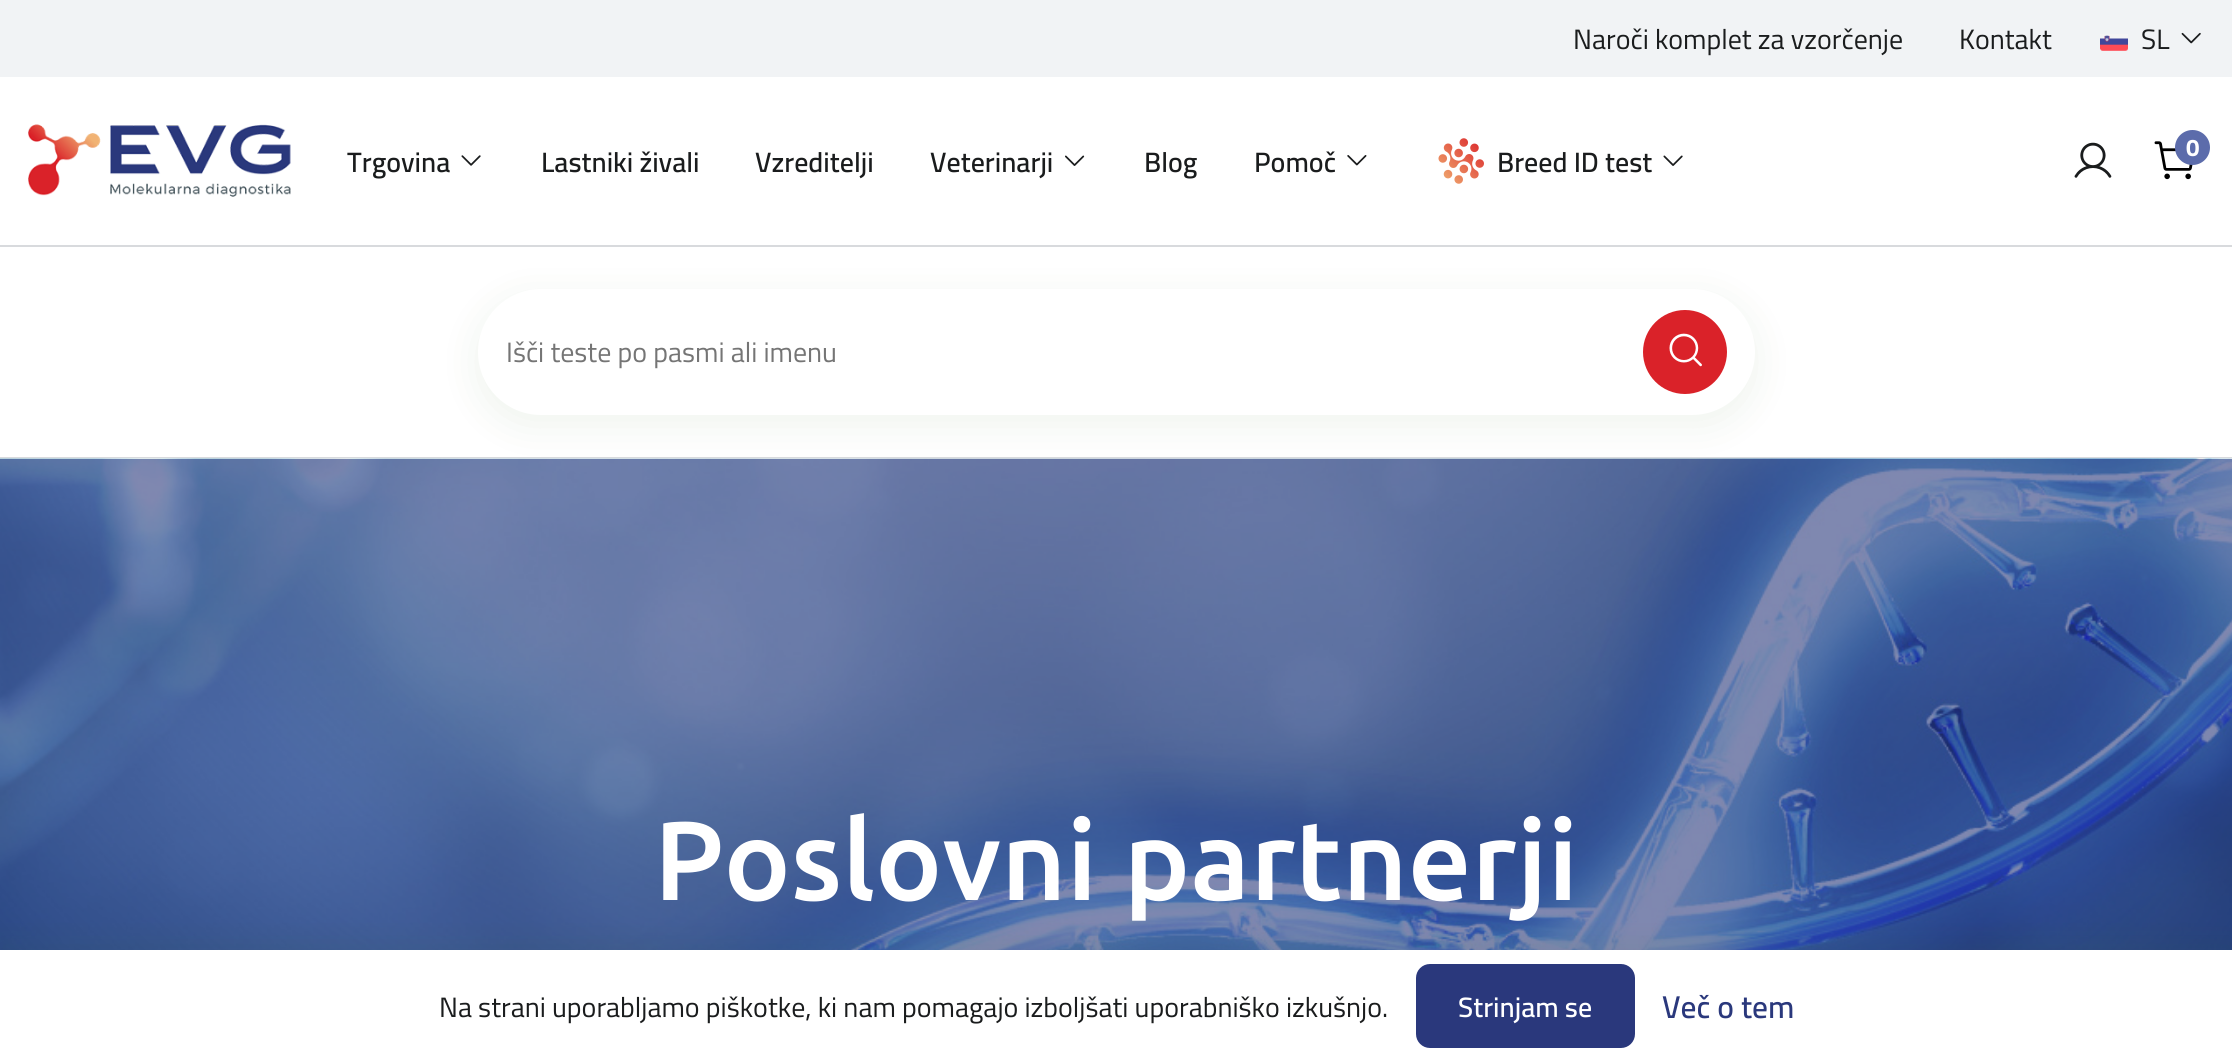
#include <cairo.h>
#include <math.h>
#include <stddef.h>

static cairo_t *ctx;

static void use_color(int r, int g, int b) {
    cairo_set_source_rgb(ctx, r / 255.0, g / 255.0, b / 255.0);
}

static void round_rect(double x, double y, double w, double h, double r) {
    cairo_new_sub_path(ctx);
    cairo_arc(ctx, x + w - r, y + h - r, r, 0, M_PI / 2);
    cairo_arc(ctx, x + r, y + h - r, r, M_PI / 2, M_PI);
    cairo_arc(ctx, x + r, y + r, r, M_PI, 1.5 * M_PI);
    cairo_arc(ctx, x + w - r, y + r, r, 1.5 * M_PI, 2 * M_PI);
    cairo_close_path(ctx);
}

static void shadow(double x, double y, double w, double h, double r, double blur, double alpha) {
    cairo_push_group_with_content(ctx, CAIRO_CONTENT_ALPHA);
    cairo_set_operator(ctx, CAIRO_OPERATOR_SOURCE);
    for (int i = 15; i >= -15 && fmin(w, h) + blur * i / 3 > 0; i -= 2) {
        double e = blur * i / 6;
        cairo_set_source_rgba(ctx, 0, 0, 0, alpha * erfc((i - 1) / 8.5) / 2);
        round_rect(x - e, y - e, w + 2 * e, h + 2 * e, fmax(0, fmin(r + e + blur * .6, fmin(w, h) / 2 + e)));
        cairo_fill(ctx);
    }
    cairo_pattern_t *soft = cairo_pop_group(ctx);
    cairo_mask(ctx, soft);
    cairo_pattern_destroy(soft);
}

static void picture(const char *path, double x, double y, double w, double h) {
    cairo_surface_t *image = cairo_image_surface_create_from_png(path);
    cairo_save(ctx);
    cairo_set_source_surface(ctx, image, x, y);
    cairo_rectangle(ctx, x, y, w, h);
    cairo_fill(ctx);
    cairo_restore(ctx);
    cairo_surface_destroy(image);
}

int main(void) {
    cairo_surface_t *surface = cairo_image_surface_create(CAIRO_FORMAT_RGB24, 2232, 1062);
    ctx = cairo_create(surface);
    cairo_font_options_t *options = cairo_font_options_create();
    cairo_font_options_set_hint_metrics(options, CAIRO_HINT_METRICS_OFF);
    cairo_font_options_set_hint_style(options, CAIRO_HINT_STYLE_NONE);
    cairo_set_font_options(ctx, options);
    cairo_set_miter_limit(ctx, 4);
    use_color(255, 255, 255);
    cairo_paint(ctx);
    use_color(241, 243, 245);
    cairo_rectangle(ctx, 0, 0, 2232, 77);
    cairo_fill(ctx);
    cairo_select_font_face(ctx, "Cairo", CAIRO_FONT_SLANT_NORMAL, CAIRO_FONT_WEIGHT_NORMAL);
    cairo_set_font_size(ctx, 28);
    use_color(26, 28, 29);
    cairo_move_to(ctx, 1573, 49);
    cairo_show_text(ctx, "Naroči komplet za vzorčenje");
    cairo_move_to(ctx, 1959, 49);
    cairo_show_text(ctx, "Kontakt");
    picture("img1.png", 2100, 34, 28, 17);
    cairo_move_to(ctx, 2141, 49);
    cairo_show_text(ctx, "SL");
    picture("img2.png", 2181, 32, 20, 12);
    use_color(216, 218, 221);
    cairo_rectangle(ctx, 0, 245, 2232, 2);
    cairo_fill(ctx);
    picture("img3.png", 2074, 142, 38, 36);
    picture("img4.png", 2154, 141, 39, 39);
    use_color(92, 108, 171);
    cairo_arc(ctx, 2192.5, 147.5, 17.5, 0, 2 * M_PI);
    cairo_fill(ctx);
    cairo_select_font_face(ctx, "Cairo", CAIRO_FONT_SLANT_NORMAL, CAIRO_FONT_WEIGHT_BOLD);
    cairo_set_font_size(ctx, 24);
    use_color(255, 255, 255);
    cairo_move_to(ctx, 2186, 156);
    cairo_show_text(ctx, "0");
    picture("img5.png", 28, 124, 263, 73);
    cairo_select_font_face(ctx, "Cairo SemiBold", CAIRO_FONT_SLANT_NORMAL, CAIRO_FONT_WEIGHT_NORMAL);
    cairo_set_font_size(ctx, 28);
    use_color(26, 28, 29);
    cairo_move_to(ctx, 347, 172);
    cairo_show_text(ctx, "Trgovina");
    picture("img6.png", 461, 155, 20, 11);
    cairo_move_to(ctx, 541, 172);
    cairo_show_text(ctx, "Lastniki živali");
    cairo_move_to(ctx, 755, 172);
    cairo_show_text(ctx, "Vzreditelji");
    cairo_move_to(ctx, 930, 172);
    cairo_show_text(ctx, "Veterinarji");
    picture("img7.png", 1065, 155, 20, 11);
    cairo_move_to(ctx, 1144, 172);
    cairo_show_text(ctx, "Blog");
    cairo_move_to(ctx, 1254, 172);
    cairo_show_text(ctx, "Pomoč");
    picture("img8.png", 1347, 155, 20, 11);
    picture("img9.png", 1438, 138, 46, 46);
    cairo_move_to(ctx, 1497, 172);
    cairo_show_text(ctx, "Breed ID test");
    picture("img10.png", 1663, 155, 20, 11);
    use_color(216, 218, 221);
    cairo_rectangle(ctx, 0, 457, 2232, 2);
    cairo_fill(ctx);
    use_color(52, 98, 30);
    shadow(478, 299, 1277, 126, 63, 21, 0.08);
    use_color(255, 255, 255);
    round_rect(478, 289, 1277, 126, 63);
    cairo_fill(ctx);
    cairo_select_font_face(ctx, "Cairo", CAIRO_FONT_SLANT_NORMAL, CAIRO_FONT_WEIGHT_NORMAL);
    use_color(117, 117, 117);
    cairo_move_to(ctx, 506, 362);
    cairo_show_text(ctx, "Išči teste po pasmi ali imenu");
    use_color(218, 34, 41);
    cairo_new_path(ctx);
    cairo_arc(ctx, 1685, 352, 42, 0, 2 * M_PI);
    cairo_fill(ctx);
    picture("img11.png", 1669, 333, 33, 34);
    picture("img12.png", 0, 458, 2232, 492);
    cairo_select_font_face(ctx, "Ubuntu Medium", CAIRO_FONT_SLANT_NORMAL, CAIRO_FONT_WEIGHT_NORMAL);
    cairo_set_font_size(ctx, 112);
    use_color(255, 255, 255);
    cairo_move_to(ctx, 654, 900);
    cairo_show_text(ctx, "Poslovni partnerji");
    use_color(52, 98, 30);
    shadow(0, 942, 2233, 112, 0, 13, 0.08);
    use_color(255, 255, 255);
    cairo_rectangle(ctx, 0, 950, 2232, 112);
    cairo_fill(ctx);
    cairo_select_font_face(ctx, "Cairo", CAIRO_FONT_SLANT_NORMAL, CAIRO_FONT_WEIGHT_NORMAL);
    cairo_set_font_size(ctx, 28);
    use_color(26, 28, 29);
    cairo_move_to(ctx, 439, 1017);
    cairo_show_text(ctx, "Na strani uporabljamo piškotke, ki nam pomagajo izboljšati uporabniško izkušnjo.");
    use_color(42, 56, 124);
    round_rect(1416, 964, 219, 84, 14);
    cairo_fill(ctx);
    cairo_select_font_face(ctx, "Cairo SemiBold", CAIRO_FONT_SLANT_NORMAL, CAIRO_FONT_WEIGHT_NORMAL);
    use_color(255, 255, 255);
    cairo_move_to(ctx, 1458, 1017);
    cairo_show_text(ctx, "Strinjam se");
    cairo_set_font_size(ctx, 31.5);
    use_color(42, 56, 124);
    cairo_move_to(ctx, 1662, 1018);
    cairo_show_text(ctx, "Več o tem");
    cairo_surface_write_to_png(surface, "result.png");
    cairo_font_options_destroy(options);
    cairo_destroy(ctx);
    cairo_surface_destroy(surface);
    return 0;
}
